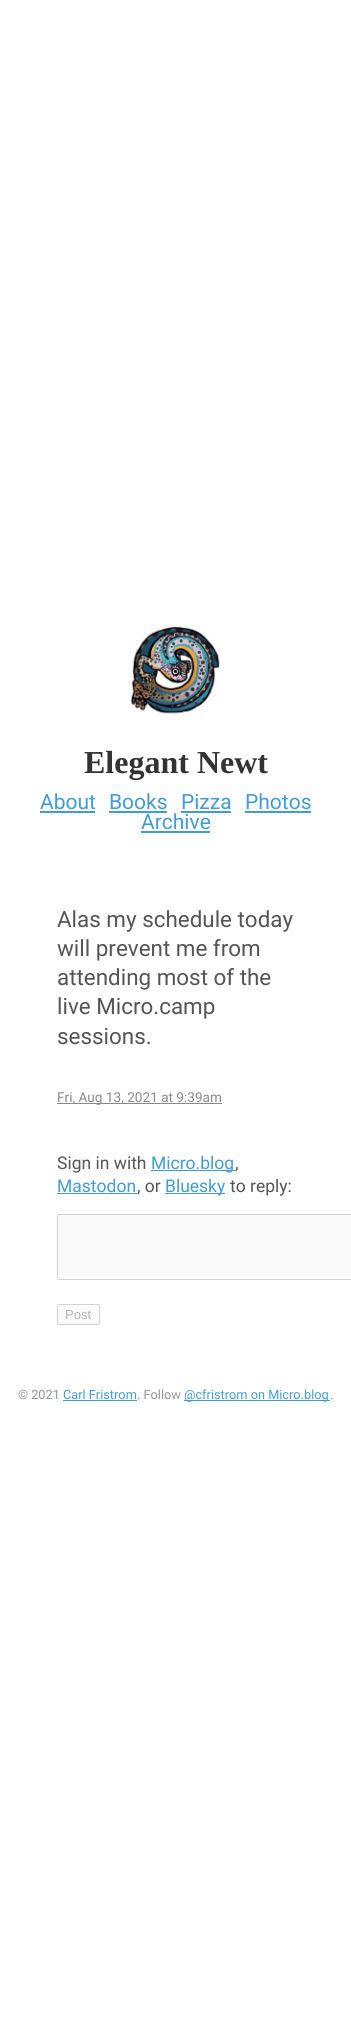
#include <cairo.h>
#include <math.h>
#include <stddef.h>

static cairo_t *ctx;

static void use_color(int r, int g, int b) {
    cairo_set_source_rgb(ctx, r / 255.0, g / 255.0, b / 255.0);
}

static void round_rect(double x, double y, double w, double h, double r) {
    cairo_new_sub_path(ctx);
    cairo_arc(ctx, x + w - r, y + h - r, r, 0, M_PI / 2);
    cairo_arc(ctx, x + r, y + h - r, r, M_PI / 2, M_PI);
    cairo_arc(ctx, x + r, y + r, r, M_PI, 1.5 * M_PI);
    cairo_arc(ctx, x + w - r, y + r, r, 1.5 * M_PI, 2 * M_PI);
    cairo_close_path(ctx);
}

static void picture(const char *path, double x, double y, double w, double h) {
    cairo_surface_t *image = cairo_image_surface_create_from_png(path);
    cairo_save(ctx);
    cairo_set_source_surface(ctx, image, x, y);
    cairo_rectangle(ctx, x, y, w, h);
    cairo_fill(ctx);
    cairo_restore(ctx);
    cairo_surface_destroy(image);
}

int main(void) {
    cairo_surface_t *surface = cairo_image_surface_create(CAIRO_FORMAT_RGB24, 351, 2042);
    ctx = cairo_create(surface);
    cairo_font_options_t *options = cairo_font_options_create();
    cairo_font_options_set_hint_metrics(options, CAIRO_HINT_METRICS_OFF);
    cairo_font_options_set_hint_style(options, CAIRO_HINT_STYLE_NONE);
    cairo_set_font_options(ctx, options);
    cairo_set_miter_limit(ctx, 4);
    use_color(255, 255, 255);
    cairo_paint(ctx);
    picture("img1.png", 127, 624, 93, 92);
    cairo_select_font_face(ctx, "Liberation Serif", CAIRO_FONT_SLANT_NORMAL, CAIRO_FONT_WEIGHT_BOLD);
    cairo_set_font_size(ctx, 32);
    use_color(51, 51, 51);
    cairo_move_to(ctx, 84, 773);
    cairo_show_text(ctx, "Elegant Newt");
    cairo_select_font_face(ctx, "Roboto", CAIRO_FONT_SLANT_NORMAL, CAIRO_FONT_WEIGHT_NORMAL);
    cairo_set_font_size(ctx, 21);
    use_color(66, 156, 212);
    cairo_move_to(ctx, 40, 809);
    cairo_show_text(ctx, "About");
    cairo_rectangle(ctx, 40, 811, 55, 2);
    cairo_fill(ctx);
    cairo_move_to(ctx, 109, 809);
    cairo_show_text(ctx, "Books");
    cairo_rectangle(ctx, 109, 811, 58, 2);
    cairo_fill(ctx);
    cairo_move_to(ctx, 181, 809);
    cairo_show_text(ctx, "Pizza");
    cairo_rectangle(ctx, 181, 811, 50, 2);
    cairo_fill(ctx);
    cairo_move_to(ctx, 245, 809);
    cairo_show_text(ctx, "Photos");
    cairo_rectangle(ctx, 245, 811, 66, 2);
    cairo_fill(ctx);
    cairo_move_to(ctx, 141, 829);
    cairo_show_text(ctx, "Archive");
    cairo_rectangle(ctx, 141, 831, 69, 2);
    cairo_fill(ctx);
    cairo_set_font_size(ctx, 22.4);
    use_color(85, 85, 85);
    cairo_move_to(ctx, 57, 927);
    cairo_show_text(ctx, "Alas my schedule today");
    cairo_move_to(ctx, 57, 956);
    cairo_show_text(ctx, "will prevent me from");
    cairo_move_to(ctx, 57, 985);
    cairo_show_text(ctx, "attending most of the");
    cairo_move_to(ctx, 57, 1014);
    cairo_show_text(ctx, "live Micro.camp");
    cairo_move_to(ctx, 57, 1044);
    cairo_show_text(ctx, "sessions.");
    use_color(136, 136, 136);
    cairo_rectangle(ctx, 57, 1103, 165, 1);
    cairo_fill(ctx);
    cairo_set_font_size(ctx, 13.6);
    cairo_move_to(ctx, 57, 1102);
    cairo_show_text(ctx, "Fri, Aug 13, 2021 at 9:39am");
    cairo_set_font_size(ctx, 17.5);
    use_color(85, 85, 85);
    cairo_move_to(ctx, 57, 1169);
    cairo_show_text(ctx, "Sign in with");
    use_color(66, 156, 212);
    cairo_rectangle(ctx, 151, 1170, 84, 1);
    cairo_fill(ctx);
    cairo_move_to(ctx, 151, 1169);
    cairo_show_text(ctx, "Micro.blog");
    use_color(85, 85, 85);
    cairo_move_to(ctx, 235, 1169);
    cairo_show_text(ctx, ",");
    use_color(66, 156, 212);
    cairo_move_to(ctx, 57, 1192);
    cairo_show_text(ctx, "Mastodon");
    cairo_rectangle(ctx, 57, 1193, 80, 1);
    cairo_fill(ctx);
    use_color(85, 85, 85);
    cairo_move_to(ctx, 137, 1192);
    cairo_show_text(ctx, ", or");
    use_color(66, 156, 212);
    cairo_rectangle(ctx, 165, 1193, 60, 1);
    cairo_fill(ctx);
    cairo_move_to(ctx, 165, 1192);
    cairo_show_text(ctx, "Bluesky");
    use_color(85, 85, 85);
    cairo_move_to(ctx, 230, 1192);
    cairo_show_text(ctx, "to reply:");
    use_color(250, 250, 250);
    round_rect(57.5, 1214.5, 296, 65, 1.5);
    cairo_fill_preserve(ctx);
    use_color(210, 210, 210);
    cairo_set_line_width(ctx, 1);
    cairo_stroke(ctx);
    use_color(250, 250, 250);
    round_rect(57.5, 1304.5, 42, 20, 1.5);
    cairo_fill_preserve(ctx);
    use_color(210, 210, 210);
    cairo_stroke(ctx);
    cairo_select_font_face(ctx, "Liberation Sans", CAIRO_FONT_SLANT_NORMAL, CAIRO_FONT_WEIGHT_NORMAL);
    cairo_set_font_size(ctx, 13);
    use_color(180, 180, 180);
    cairo_move_to(ctx, 65, 1319);
    cairo_show_text(ctx, "Post");
    cairo_select_font_face(ctx, "Roboto", CAIRO_FONT_SLANT_NORMAL, CAIRO_FONT_WEIGHT_NORMAL);
    cairo_set_font_size(ctx, 12.75);
    use_color(149, 149, 149);
    cairo_move_to(ctx, 18, 1399);
    cairo_show_text(ctx, "© 2021");
    use_color(66, 156, 212);
    cairo_move_to(ctx, 63, 1399);
    cairo_show_text(ctx, "Carl Fristrom");
    cairo_rectangle(ctx, 63, 1400, 74, 1);
    cairo_fill(ctx);
    use_color(149, 149, 149);
    cairo_move_to(ctx, 137, 1399);
    cairo_show_text(ctx, ". Follow");
    use_color(66, 156, 212);
    cairo_rectangle(ctx, 184, 1400, 146, 1);
    cairo_fill(ctx);
    cairo_move_to(ctx, 184, 1399);
    cairo_show_text(ctx, "@cfristrom on Micro.blog");
    use_color(149, 149, 149);
    cairo_move_to(ctx, 330, 1399);
    cairo_show_text(ctx, ".");
    cairo_surface_write_to_png(surface, "result.png");
    cairo_font_options_destroy(options);
    cairo_destroy(ctx);
    cairo_surface_destroy(surface);
    return 0;
}
